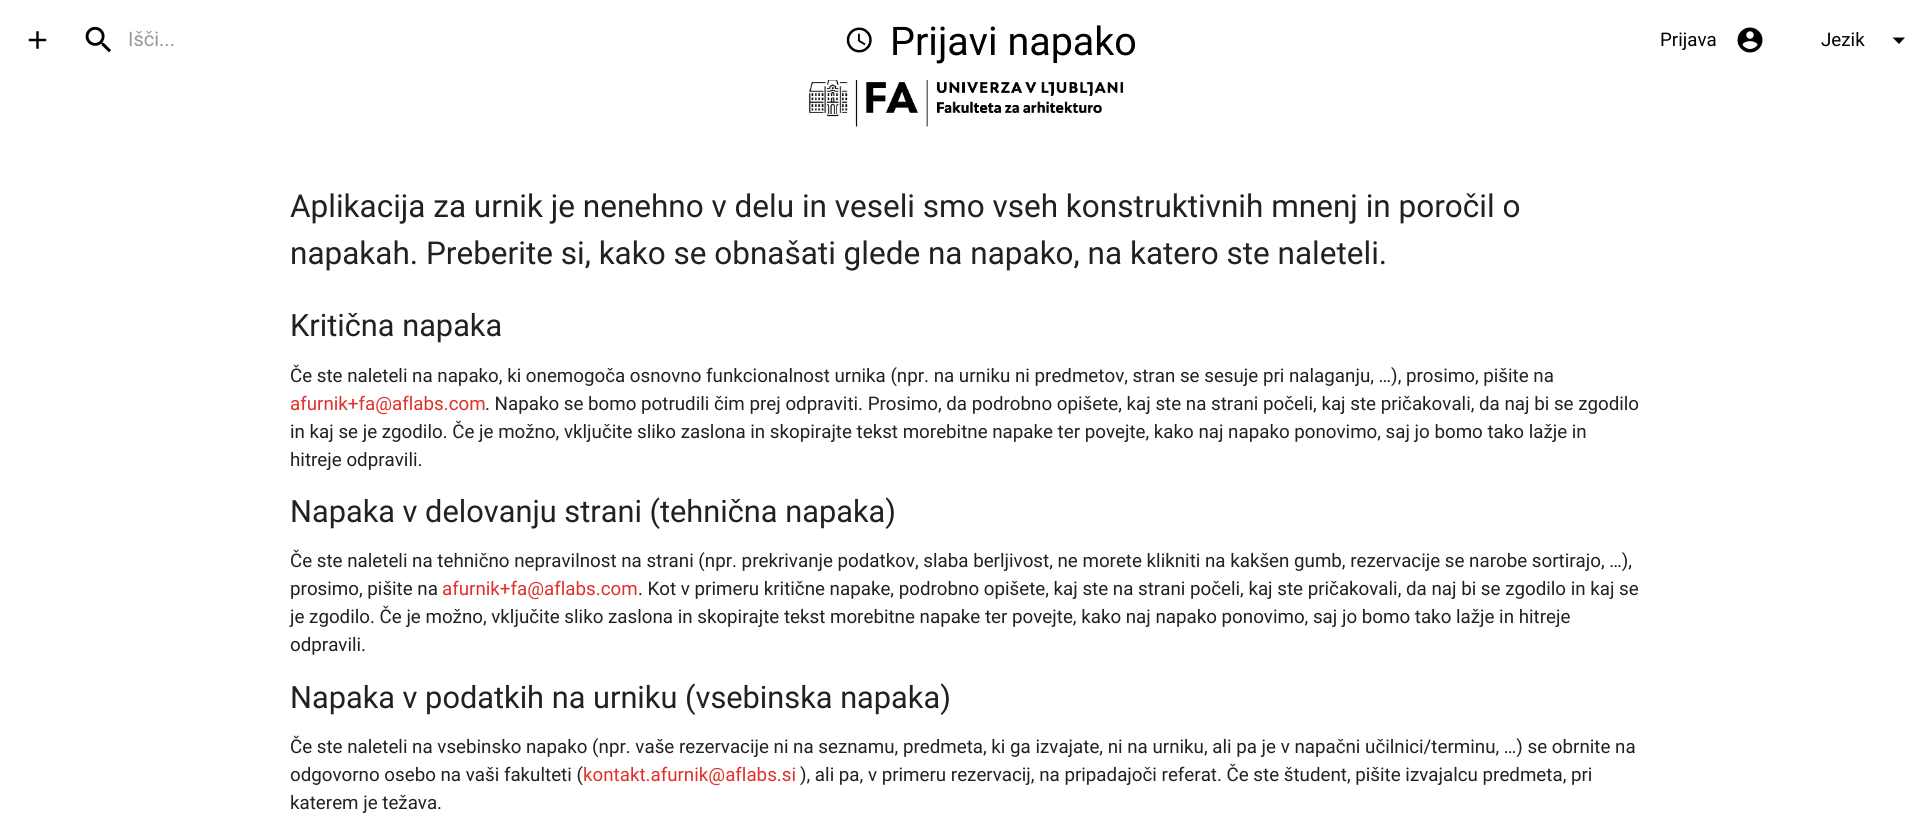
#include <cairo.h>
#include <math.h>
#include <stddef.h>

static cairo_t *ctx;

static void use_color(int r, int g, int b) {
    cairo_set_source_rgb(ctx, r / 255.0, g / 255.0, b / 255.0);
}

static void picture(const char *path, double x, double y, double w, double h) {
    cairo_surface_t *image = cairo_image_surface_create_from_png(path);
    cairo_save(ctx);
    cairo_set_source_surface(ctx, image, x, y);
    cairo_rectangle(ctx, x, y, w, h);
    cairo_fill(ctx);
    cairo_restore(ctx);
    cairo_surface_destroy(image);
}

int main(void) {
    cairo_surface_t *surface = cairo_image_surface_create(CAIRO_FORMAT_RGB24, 1932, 834);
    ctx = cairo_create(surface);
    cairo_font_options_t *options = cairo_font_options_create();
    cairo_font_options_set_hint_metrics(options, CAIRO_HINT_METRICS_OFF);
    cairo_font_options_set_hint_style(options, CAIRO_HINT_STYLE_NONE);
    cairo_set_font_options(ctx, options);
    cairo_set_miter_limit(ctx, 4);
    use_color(255, 255, 255);
    cairo_paint(ctx);
    picture("img1.png", 28, 31, 19, 18);
    picture("img2.png", 85, 26, 26, 27);
    cairo_select_font_face(ctx, "Roboto", CAIRO_FONT_SLANT_NORMAL, CAIRO_FONT_WEIGHT_NORMAL);
    cairo_set_font_size(ctx, 20);
    use_color(153, 153, 153);
    cairo_move_to(ctx, 128, 46);
    cairo_show_text(ctx, "Išči...");
    picture("img3.png", 846, 27, 26, 26);
    cairo_set_font_size(ctx, 39.5);
    use_color(0, 0, 0);
    cairo_move_to(ctx, 890, 55);
    cairo_show_text(ctx, "Prijavi napako");
    cairo_set_font_size(ctx, 18.75);
    cairo_move_to(ctx, 1660, 46);
    cairo_show_text(ctx, "Prijava");
    picture("img4.png", 1737, 27, 26, 26);
    cairo_move_to(ctx, 1821, 46);
    cairo_show_text(ctx, "Jezik");
    cairo_new_path(ctx);
    cairo_move_to(ctx, 1892.5, 37.5);
    cairo_line_to(ctx, 1905, 37.5);
    cairo_line_to(ctx, 1899, 44);
    cairo_close_path(ctx);
    cairo_fill(ctx);
    picture("img5.png", 808, 80, 316, 47);
    cairo_set_font_size(ctx, 31.5);
    use_color(33, 33, 33);
    cairo_move_to(ctx, 290, 217);
    cairo_show_text(ctx, "Aplikacija za urnik je nenehno v delu in veseli smo vseh konstruktivnih mnenj in poročil o");
    cairo_move_to(ctx, 290, 264);
    cairo_show_text(ctx, "napakah. Preberite si, kako se obnašati glede na napako, na katero ste naleteli.");
    cairo_set_font_size(ctx, 30.75);
    cairo_move_to(ctx, 290, 336);
    cairo_show_text(ctx, "Kritična napaka");
    cairo_set_font_size(ctx, 18.75);
    cairo_move_to(ctx, 290, 382);
    cairo_show_text(ctx, "Če ste naleteli na napako, ki onemogoča osnovno funkcionalnost urnika (npr. na urniku ni predmetov, stran se sesuje pri nalaganju, …), prosimo, pišite na");
    use_color(224, 48, 39);
    cairo_move_to(ctx, 290, 410);
    cairo_show_text(ctx, "afurnik+fa@aflabs.com");
    use_color(33, 33, 33);
    cairo_move_to(ctx, 485, 410);
    cairo_show_text(ctx, ". Napako se bomo potrudili čim prej odpraviti. Prosimo, da podrobno opišete, kaj ste na strani počeli, kaj ste pričakovali, da naj bi se zgodilo");
    cairo_move_to(ctx, 290, 438);
    cairo_show_text(ctx, "in kaj se je zgodilo. Če je možno, vključite sliko zaslona in skopirajte tekst morebitne napake ter povejte, kako naj napako ponovimo, saj jo bomo tako lažje in");
    cairo_move_to(ctx, 290, 466);
    cairo_show_text(ctx, "hitreje odpravili.");
    cairo_set_font_size(ctx, 30.75);
    cairo_move_to(ctx, 290, 522);
    cairo_show_text(ctx, "Napaka v delovanju strani (tehnična napaka)");
    cairo_set_font_size(ctx, 18.75);
    cairo_move_to(ctx, 290, 567);
    cairo_show_text(ctx, "Če ste naleteli na tehnično nepravilnost na strani (npr. prekrivanje podatkov, slaba berljivost, ne morete klikniti na kakšen gumb, rezervacije se narobe sortirajo, …),");
    cairo_move_to(ctx, 290, 595);
    cairo_show_text(ctx, "prosimo, pišite na");
    use_color(224, 48, 39);
    cairo_move_to(ctx, 442, 595);
    cairo_show_text(ctx, "afurnik+fa@aflabs.com");
    use_color(33, 33, 33);
    cairo_move_to(ctx, 638, 595);
    cairo_show_text(ctx, ". Kot v primeru kritične napake, podrobno opišete, kaj ste na strani počeli, kaj ste pričakovali, da naj bi se zgodilo in kaj se");
    cairo_move_to(ctx, 290, 623);
    cairo_show_text(ctx, "je zgodilo. Če je možno, vključite sliko zaslona in skopirajte tekst morebitne napake ter povejte, kako naj napako ponovimo, saj jo bomo tako lažje in hitreje");
    cairo_move_to(ctx, 290, 651);
    cairo_show_text(ctx, "odpravili.");
    cairo_set_font_size(ctx, 30.75);
    cairo_move_to(ctx, 290, 708);
    cairo_show_text(ctx, "Napaka v podatkih na urniku (vsebinska napaka)");
    cairo_set_font_size(ctx, 18.75);
    cairo_move_to(ctx, 290, 753);
    cairo_show_text(ctx, "Če ste naleteli na vsebinsko napako (npr. vaše rezervacije ni na seznamu, predmeta, ki ga izvajate, ni na urniku, ali pa je v napačni učilnici/terminu, …) se obrnite na");
    cairo_move_to(ctx, 290, 781);
    cairo_show_text(ctx, "odgovorno osebo na vaši fakulteti (");
    use_color(224, 48, 39);
    cairo_move_to(ctx, 583, 781);
    cairo_show_text(ctx, "kontakt.afurnik@aflabs.si");
    use_color(33, 33, 33);
    cairo_move_to(ctx, 800, 781);
    cairo_show_text(ctx, "), ali pa, v primeru rezervacij, na pripadajoči referat. Če ste študent, pišite izvajalcu predmeta, pri");
    cairo_move_to(ctx, 290, 809);
    cairo_show_text(ctx, "katerem je težava.");
    cairo_surface_write_to_png(surface, "result.png");
    cairo_font_options_destroy(options);
    cairo_destroy(ctx);
    cairo_surface_destroy(surface);
    return 0;
}
